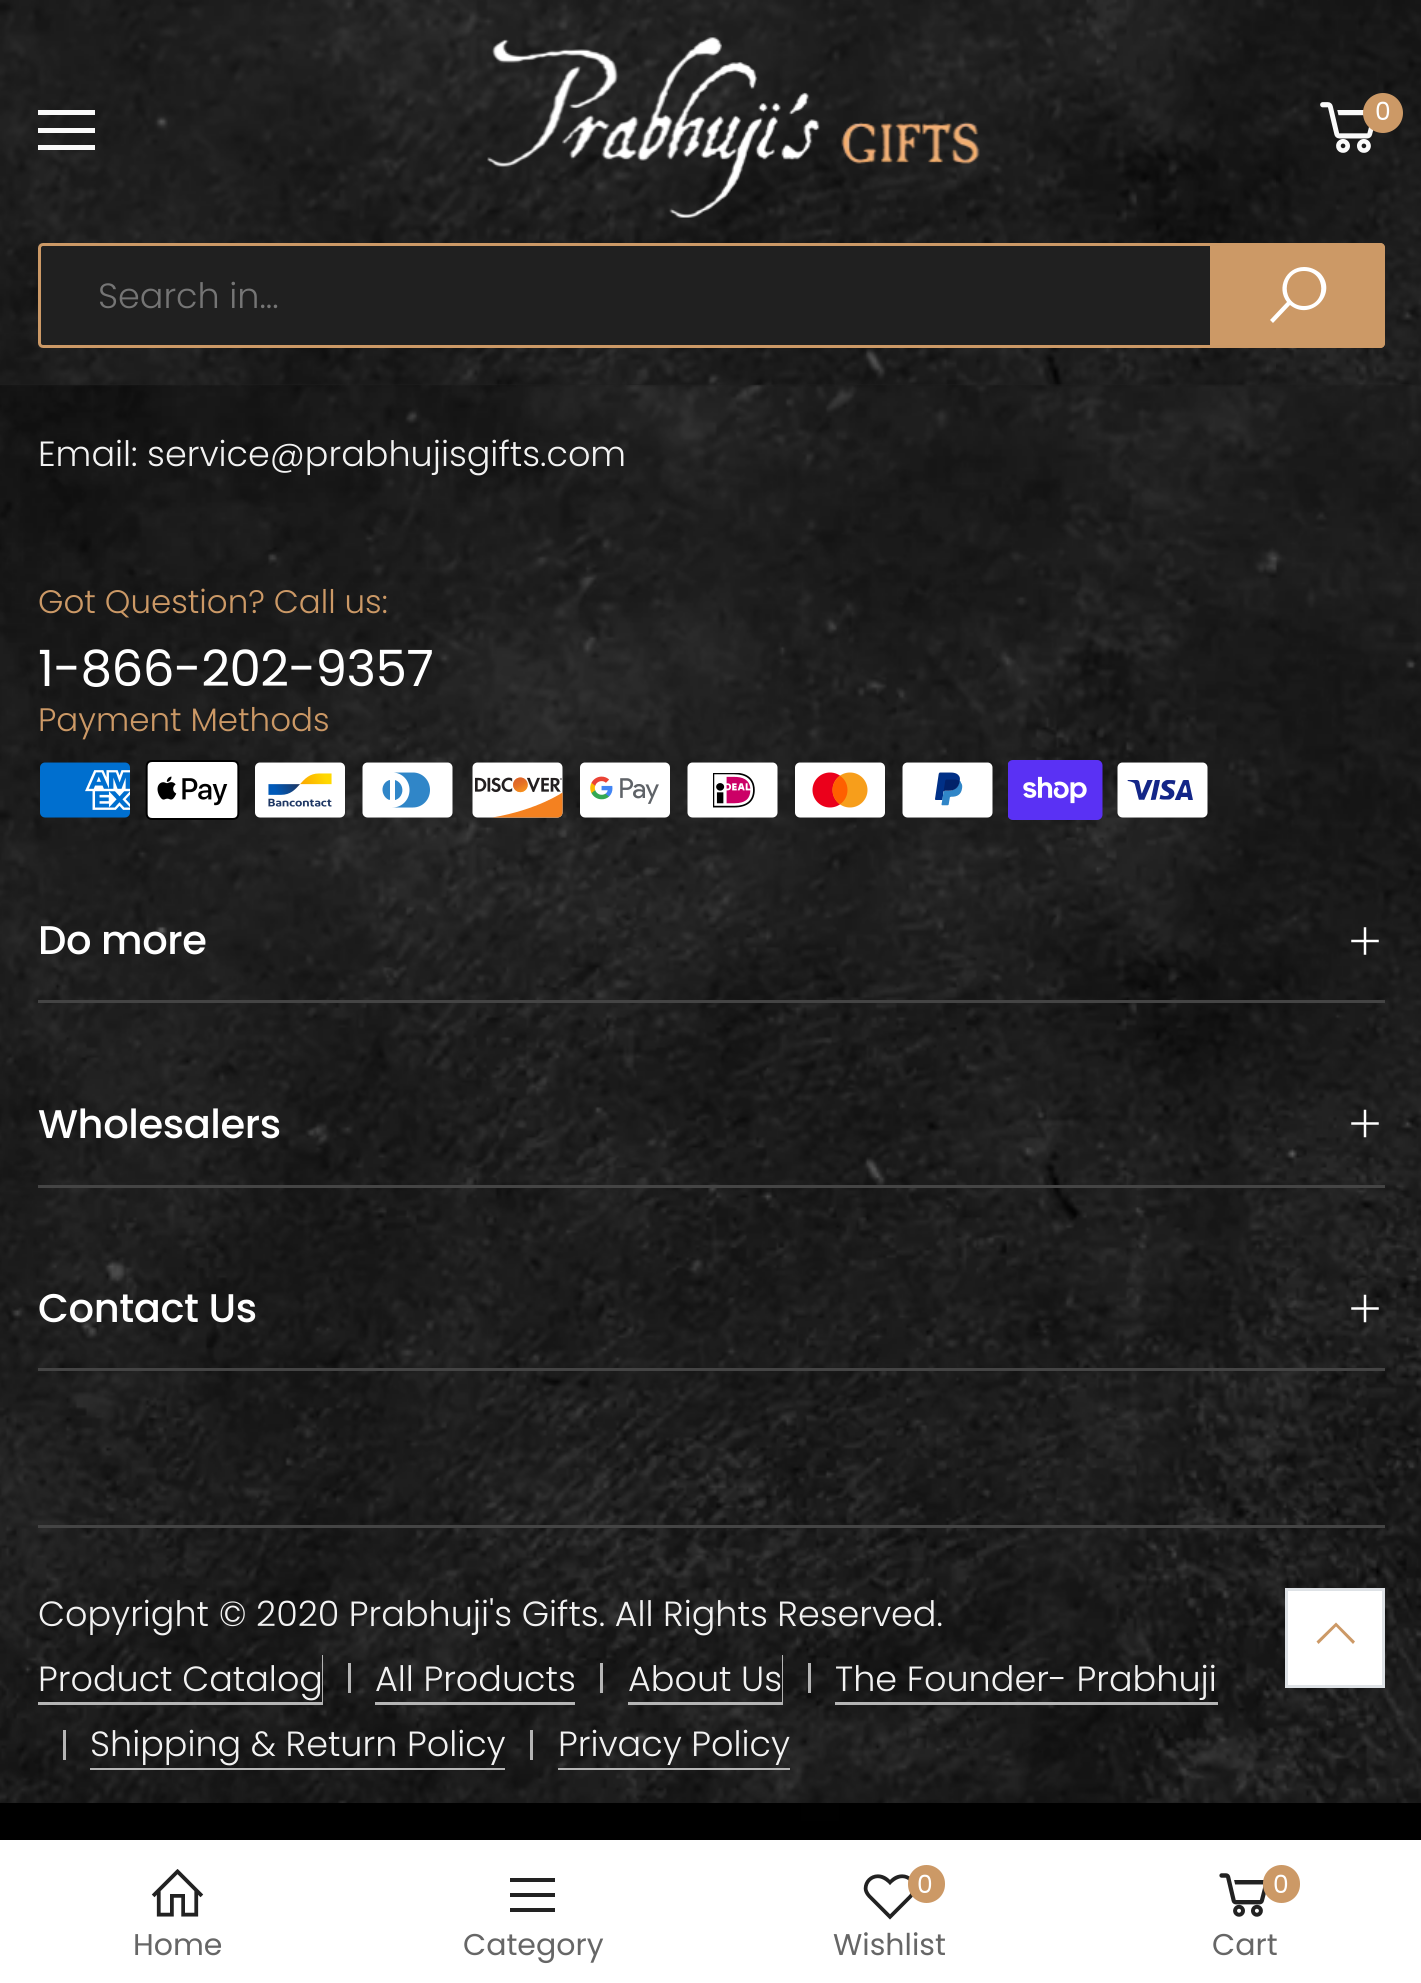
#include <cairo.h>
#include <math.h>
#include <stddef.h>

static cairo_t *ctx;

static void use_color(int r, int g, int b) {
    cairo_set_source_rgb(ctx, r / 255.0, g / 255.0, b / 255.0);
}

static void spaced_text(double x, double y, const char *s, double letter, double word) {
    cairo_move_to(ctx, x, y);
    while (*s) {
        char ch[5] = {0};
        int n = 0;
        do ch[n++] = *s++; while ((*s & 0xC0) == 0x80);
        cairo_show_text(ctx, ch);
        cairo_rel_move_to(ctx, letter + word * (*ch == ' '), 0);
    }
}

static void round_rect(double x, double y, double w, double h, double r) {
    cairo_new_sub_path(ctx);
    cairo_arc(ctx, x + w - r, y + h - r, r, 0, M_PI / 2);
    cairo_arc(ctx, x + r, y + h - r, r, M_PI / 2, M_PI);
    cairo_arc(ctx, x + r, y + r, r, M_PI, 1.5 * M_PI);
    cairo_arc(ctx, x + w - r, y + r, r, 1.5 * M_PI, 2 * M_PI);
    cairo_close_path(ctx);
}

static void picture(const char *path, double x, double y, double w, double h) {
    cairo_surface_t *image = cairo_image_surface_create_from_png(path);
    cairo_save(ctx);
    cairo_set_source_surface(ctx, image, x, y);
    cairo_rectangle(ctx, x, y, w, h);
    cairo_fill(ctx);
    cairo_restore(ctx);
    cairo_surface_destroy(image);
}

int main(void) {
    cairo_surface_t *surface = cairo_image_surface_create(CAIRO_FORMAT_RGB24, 1421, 1983);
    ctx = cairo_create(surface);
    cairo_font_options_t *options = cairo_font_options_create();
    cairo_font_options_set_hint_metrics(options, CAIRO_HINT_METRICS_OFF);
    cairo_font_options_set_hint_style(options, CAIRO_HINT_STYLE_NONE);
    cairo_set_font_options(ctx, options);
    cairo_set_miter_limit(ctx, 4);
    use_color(255, 255, 255);
    cairo_paint(ctx);
    use_color(32, 32, 32);
    cairo_rectangle(ctx, 0, 0, 1421, 385);
    cairo_fill(ctx);
    picture("img4.png", 0, 385, 1421, 1418);
    picture("img1.png", 0, 0, 1421, 387);
    use_color(250, 250, 250);
    cairo_rectangle(ctx, 38, 110, 57, 5);
    cairo_fill(ctx);
    cairo_rectangle(ctx, 38, 128, 57, 5);
    cairo_fill(ctx);
    cairo_rectangle(ctx, 38, 145, 57, 5);
    cairo_fill(ctx);
    picture("img2.png", 487, 37, 493, 181);
    picture("img3.png", 1320, 102, 54, 51);
    use_color(204, 153, 102);
    cairo_arc(ctx, 1383, 113, 20, 0, 2 * M_PI);
    cairo_fill(ctx);
    cairo_select_font_face(ctx, "Poppins", CAIRO_FONT_SLANT_NORMAL, CAIRO_FONT_WEIGHT_NORMAL);
    cairo_set_font_size(ctx, 25);
    use_color(255, 255, 255);
    cairo_move_to(ctx, 1375, 120);
    cairo_show_text(ctx, "0");
    use_color(32, 32, 32);
    cairo_rectangle(ctx, 38, 243, 1347, 105);
    cairo_fill(ctx);
    round_rect(39.5, 244.5, 1344, 102, 3.5);
    use_color(204, 153, 102);
    cairo_set_line_width(ctx, 3);
    cairo_stroke(ctx);
    cairo_select_font_face(ctx, "Poppins Light", CAIRO_FONT_SLANT_NORMAL, CAIRO_FONT_WEIGHT_NORMAL);
    cairo_set_font_size(ctx, 35);
    use_color(117, 117, 117);
    cairo_move_to(ctx, 98, 308);
    cairo_show_text(ctx, "Search in...");
    use_color(204, 153, 102);
    cairo_new_path(ctx);
    cairo_move_to(ctx, 1210, 243);
    cairo_line_to(ctx, 1380, 243);
    cairo_curve_to(ctx, 1383, 243, 1385, 245, 1385, 248);
    cairo_line_to(ctx, 1385, 343);
    cairo_curve_to(ctx, 1385, 346, 1383, 348, 1380, 348);
    cairo_line_to(ctx, 1210, 348);
    cairo_close_path(ctx);
    cairo_fill(ctx);
    use_color(255, 255, 255);
    cairo_new_path(ctx);
    cairo_move_to(ctx, 1304, 267);
    cairo_curve_to(ctx, 1286, 267, 1276, 288, 1287, 302);
    cairo_line_to(ctx, 1270, 320);
    cairo_line_to(ctx, 1273, 323);
    cairo_line_to(ctx, 1290, 305);
    cairo_curve_to(ctx, 1311, 322, 1339, 293, 1320, 273);
    cairo_curve_to(ctx, 1315, 269, 1310, 267, 1304, 267);
    cairo_close_path(ctx);
    cairo_move_to(ctx, 1304, 271);
    cairo_curve_to(ctx, 1327, 271, 1327, 306, 1304, 306);
    cairo_curve_to(ctx, 1281, 306, 1281, 271, 1304, 271);
    cairo_close_path(ctx);
    cairo_fill(ctx);
    use_color(242, 242, 242);
    cairo_move_to(ctx, 38, 466);
    cairo_show_text(ctx, "Email: service@prabhujisgifts.com");
    cairo_set_font_size(ctx, 32.5);
    use_color(204, 153, 102);
    cairo_move_to(ctx, 38, 613);
    cairo_show_text(ctx, "Got Question? Call us:");
    cairo_select_font_face(ctx, "Poppins", CAIRO_FONT_SLANT_NORMAL, CAIRO_FONT_WEIGHT_NORMAL);
    cairo_set_font_size(ctx, 50);
    use_color(255, 255, 255);
    spaced_text(38, 686, "1-866-202-9357", -0.5, 0);
    cairo_select_font_face(ctx, "Poppins Light", CAIRO_FONT_SLANT_NORMAL, CAIRO_FONT_WEIGHT_NORMAL);
    cairo_set_font_size(ctx, 32.5);
    use_color(204, 153, 102);
    cairo_move_to(ctx, 38, 731);
    cairo_show_text(ctx, "Payment Methods");
    picture("img5.png", 40, 762, 90, 56);
    picture("img6.png", 145, 760, 95, 60);
    picture("img7.png", 255, 762, 90, 56);
    picture("img8.png", 362, 762, 91, 56);
    picture("img9.png", 472, 762, 91, 56);
    picture("img10.png", 580, 762, 90, 56);
    picture("img11.png", 687, 762, 91, 56);
    picture("img12.png", 795, 762, 90, 56);
    picture("img13.png", 902, 762, 91, 56);
    picture("img14.png", 1008, 760, 95, 60);
    picture("img15.png", 1117, 762, 91, 56);
    use_color(68, 68, 68);
    cairo_rectangle(ctx, 38, 1000, 1347, 3);
    cairo_fill(ctx);
    cairo_select_font_face(ctx, "Poppins Medium", CAIRO_FONT_SLANT_NORMAL, CAIRO_FONT_WEIGHT_NORMAL);
    cairo_set_font_size(ctx, 40);
    use_color(255, 255, 255);
    spaced_text(38, 954, "Do more", -0.4, 0);
    picture("img16.png", 1351, 927, 28, 28);
    use_color(68, 68, 68);
    cairo_rectangle(ctx, 38, 1185, 1347, 3);
    cairo_fill(ctx);
    use_color(255, 255, 255);
    spaced_text(38, 1138, "Wholesalers", -0.4, 0);
    picture("img17.png", 1351, 1109, 28, 29);
    use_color(68, 68, 68);
    cairo_rectangle(ctx, 38, 1368, 1347, 3);
    cairo_fill(ctx);
    use_color(255, 255, 255);
    spaced_text(38, 1322, "Contact Us", -0.4, 0);
    picture("img18.png", 1351, 1294, 28, 29);
    use_color(68, 68, 68);
    cairo_rectangle(ctx, 38, 1525, 1347, 3);
    cairo_fill(ctx);
    cairo_select_font_face(ctx, "Poppins Light", CAIRO_FONT_SLANT_NORMAL, CAIRO_FONT_WEIGHT_NORMAL);
    cairo_set_font_size(ctx, 35);
    use_color(242, 242, 242);
    cairo_move_to(ctx, 38, 1626);
    cairo_show_text(ctx, "Copyright © 2020 Prabhuji's Gifts. All Rights Reserved.");
    use_color(181, 181, 181);
    cairo_new_path(ctx);
    cairo_move_to(ctx, 38, 1702);
    cairo_line_to(ctx, 38, 1705);
    cairo_line_to(ctx, 323, 1705);
    cairo_line_to(ctx, 323, 1655);
    cairo_line_to(ctx, 322, 1655);
    cairo_line_to(ctx, 322, 1702);
    cairo_close_path(ctx);
    cairo_fill(ctx);
    use_color(242, 242, 242);
    cairo_move_to(ctx, 38, 1691);
    cairo_show_text(ctx, "Product Catalog");
    use_color(181, 181, 181);
    cairo_rectangle(ctx, 348, 1663, 3, 30);
    cairo_fill(ctx);
    use_color(242, 242, 242);
    cairo_move_to(ctx, 375, 1691);
    cairo_show_text(ctx, "All Products");
    use_color(181, 181, 181);
    cairo_rectangle(ctx, 375, 1702, 200, 3);
    cairo_fill(ctx);
    cairo_rectangle(ctx, 600, 1663, 3, 30);
    cairo_fill(ctx);
    cairo_new_path(ctx);
    cairo_move_to(ctx, 628, 1702);
    cairo_line_to(ctx, 628, 1705);
    cairo_line_to(ctx, 783, 1705);
    cairo_line_to(ctx, 783, 1655);
    cairo_line_to(ctx, 782, 1655);
    cairo_line_to(ctx, 782, 1702);
    cairo_close_path(ctx);
    cairo_fill(ctx);
    use_color(242, 242, 242);
    cairo_move_to(ctx, 628, 1691);
    cairo_show_text(ctx, "About Us");
    use_color(181, 181, 181);
    cairo_rectangle(ctx, 808, 1663, 3, 30);
    cairo_fill(ctx);
    use_color(242, 242, 242);
    cairo_move_to(ctx, 835, 1691);
    cairo_show_text(ctx, "The Founder- Prabhuji");
    use_color(181, 181, 181);
    cairo_new_path(ctx);
    cairo_move_to(ctx, 835, 1702);
    cairo_line_to(ctx, 835, 1705);
    cairo_line_to(ctx, 1218, 1705);
    cairo_line_to(ctx, 1218, 1655);
    cairo_line_to(ctx, 1218, 1702);
    cairo_close_path(ctx);
    cairo_fill(ctx);
    cairo_rectangle(ctx, 63, 1730, 3, 30);
    cairo_fill(ctx);
    use_color(242, 242, 242);
    cairo_move_to(ctx, 90, 1756);
    cairo_show_text(ctx, "Shipping & Return Policy");
    use_color(181, 181, 181);
    cairo_rectangle(ctx, 90, 1768, 415, 2);
    cairo_fill(ctx);
    cairo_rectangle(ctx, 530, 1730, 3, 30);
    cairo_fill(ctx);
    use_color(242, 242, 242);
    cairo_move_to(ctx, 558, 1756);
    cairo_show_text(ctx, "Privacy Policy");
    use_color(181, 181, 181);
    cairo_rectangle(ctx, 558, 1768, 232, 2);
    cairo_fill(ctx);
    picture("img19.png", 0, 1803, 1421, 37);
    picture("img20.png", 151, 1869, 53, 48);
    cairo_select_font_face(ctx, "Poppins", CAIRO_FONT_SLANT_NORMAL, CAIRO_FONT_WEIGHT_NORMAL);
    cairo_set_font_size(ctx, 30);
    use_color(102, 102, 102);
    cairo_move_to(ctx, 133, 1955);
    cairo_show_text(ctx, "Home");
    use_color(34, 34, 34);
    cairo_new_path(ctx);
    cairo_move_to(ctx, 510, 1878);
    cairo_line_to(ctx, 510, 1882);
    cairo_line_to(ctx, 555, 1882);
    cairo_line_to(ctx, 555, 1878);
    cairo_close_path(ctx);
    cairo_move_to(ctx, 510, 1893);
    cairo_line_to(ctx, 510, 1897);
    cairo_line_to(ctx, 555, 1897);
    cairo_line_to(ctx, 555, 1893);
    cairo_close_path(ctx);
    cairo_move_to(ctx, 510, 1908);
    cairo_line_to(ctx, 510, 1912);
    cairo_line_to(ctx, 555, 1912);
    cairo_line_to(ctx, 555, 1908);
    cairo_close_path(ctx);
    cairo_fill(ctx);
    use_color(102, 102, 102);
    cairo_move_to(ctx, 463, 1955);
    cairo_show_text(ctx, "Category");
    picture("img21.png", 863, 1874, 50, 46);
    use_color(204, 153, 102);
    round_rect(908, 1865, 37, 38, 18.5);
    cairo_fill(ctx);
    cairo_set_font_size(ctx, 25);
    use_color(255, 255, 255);
    cairo_move_to(ctx, 917, 1893);
    cairo_show_text(ctx, "0");
    cairo_set_font_size(ctx, 30);
    use_color(102, 102, 102);
    cairo_move_to(ctx, 833, 1955);
    cairo_show_text(ctx, "Wishlist");
    picture("img22.png", 1219, 1873, 47, 44);
    use_color(204, 153, 102);
    round_rect(1263, 1865, 37, 38, 18.5);
    cairo_fill(ctx);
    cairo_set_font_size(ctx, 25);
    use_color(255, 255, 255);
    cairo_move_to(ctx, 1273, 1893);
    cairo_show_text(ctx, "0");
    cairo_set_font_size(ctx, 30);
    use_color(102, 102, 102);
    cairo_move_to(ctx, 1212, 1955);
    cairo_show_text(ctx, "Cart");
    use_color(255, 255, 255);
    cairo_rectangle(ctx, 1286.5, 1589.5, 97, 97);
    cairo_fill_preserve(ctx);
    use_color(222, 226, 230);
    cairo_stroke(ctx);
    use_color(204, 153, 102);
    cairo_new_path(ctx);
    cairo_move_to(ctx, 1336, 1622.5);
    cairo_line_to(ctx, 1355, 1641.5);
    cairo_line_to(ctx, 1353, 1644);
    cairo_line_to(ctx, 1336, 1626.5);
    cairo_line_to(ctx, 1318.5, 1644);
    cairo_line_to(ctx, 1316.5, 1641.5);
    cairo_close_path(ctx);
    cairo_fill(ctx);
    cairo_surface_write_to_png(surface, "result.png");
    cairo_font_options_destroy(options);
    cairo_destroy(ctx);
    cairo_surface_destroy(surface);
    return 0;
}
